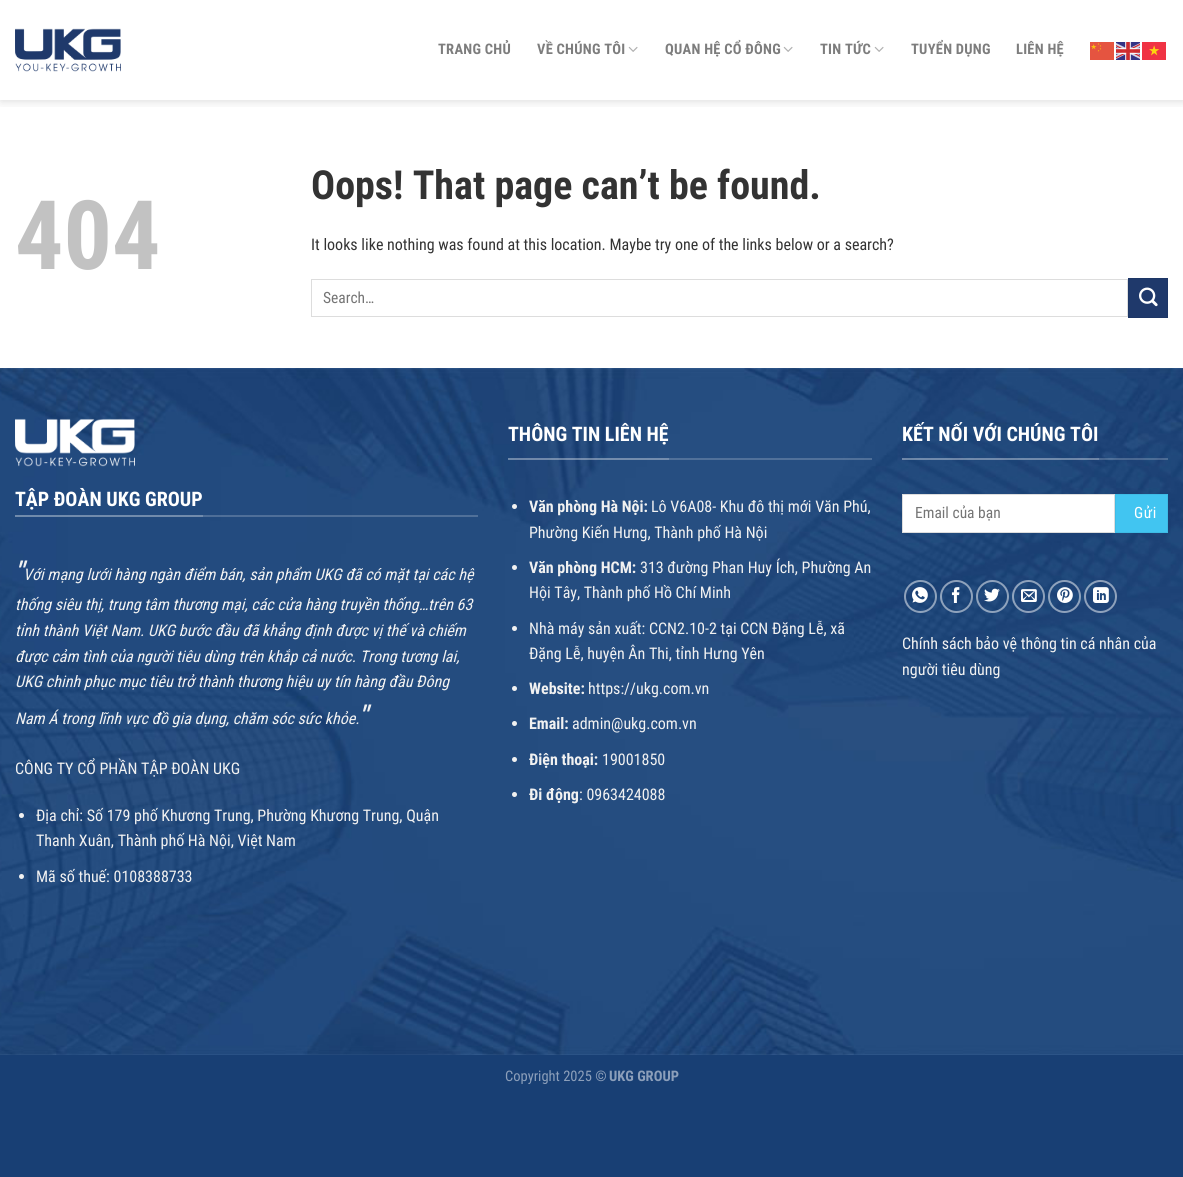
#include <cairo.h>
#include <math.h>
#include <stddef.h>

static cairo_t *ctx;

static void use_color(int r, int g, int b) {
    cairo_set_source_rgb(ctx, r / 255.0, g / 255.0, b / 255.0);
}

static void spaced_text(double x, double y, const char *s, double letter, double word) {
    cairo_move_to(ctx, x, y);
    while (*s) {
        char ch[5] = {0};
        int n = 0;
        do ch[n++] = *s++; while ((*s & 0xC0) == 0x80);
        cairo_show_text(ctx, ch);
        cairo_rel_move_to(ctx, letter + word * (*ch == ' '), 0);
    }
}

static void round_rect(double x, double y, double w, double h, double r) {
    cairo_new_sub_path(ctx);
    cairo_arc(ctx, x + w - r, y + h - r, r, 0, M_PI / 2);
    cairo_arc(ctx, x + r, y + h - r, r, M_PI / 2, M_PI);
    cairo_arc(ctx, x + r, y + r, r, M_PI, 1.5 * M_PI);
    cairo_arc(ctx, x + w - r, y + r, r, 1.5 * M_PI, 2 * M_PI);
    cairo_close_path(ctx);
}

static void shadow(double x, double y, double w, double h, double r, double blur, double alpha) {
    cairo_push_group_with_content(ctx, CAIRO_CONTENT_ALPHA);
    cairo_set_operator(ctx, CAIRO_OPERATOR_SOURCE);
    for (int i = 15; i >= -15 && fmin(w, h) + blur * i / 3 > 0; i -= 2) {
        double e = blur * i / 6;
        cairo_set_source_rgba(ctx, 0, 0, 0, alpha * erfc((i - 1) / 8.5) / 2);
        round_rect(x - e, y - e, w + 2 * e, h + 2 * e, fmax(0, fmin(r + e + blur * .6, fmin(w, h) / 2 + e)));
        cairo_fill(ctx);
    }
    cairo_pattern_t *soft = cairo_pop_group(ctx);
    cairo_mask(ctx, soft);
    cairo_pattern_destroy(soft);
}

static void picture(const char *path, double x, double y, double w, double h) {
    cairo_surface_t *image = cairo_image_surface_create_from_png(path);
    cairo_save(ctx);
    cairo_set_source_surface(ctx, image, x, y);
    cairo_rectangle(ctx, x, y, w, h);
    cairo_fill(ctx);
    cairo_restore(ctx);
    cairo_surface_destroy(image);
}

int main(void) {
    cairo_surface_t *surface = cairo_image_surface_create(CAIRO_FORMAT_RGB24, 1183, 1177);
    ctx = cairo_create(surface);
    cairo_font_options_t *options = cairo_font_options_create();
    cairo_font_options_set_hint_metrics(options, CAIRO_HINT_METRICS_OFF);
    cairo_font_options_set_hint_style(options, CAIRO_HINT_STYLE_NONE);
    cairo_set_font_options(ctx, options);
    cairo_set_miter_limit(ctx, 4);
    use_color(24, 63, 116);
    cairo_paint(ctx);
    use_color(255, 255, 255);
    cairo_rectangle(ctx, 0, 0, 1183, 368);
    cairo_fill(ctx);
    cairo_save(ctx);
    cairo_rectangle(ctx, 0, 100, 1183, 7);
    cairo_clip(ctx);
    use_color(0, 0, 0);
    shadow(1, 1, 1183, 100, 0, 5, 0.15);
    cairo_restore(ctx);
    picture("img1.png", 15, 28, 106, 44);
    cairo_select_font_face(ctx, "Roboto Condensed", CAIRO_FONT_SLANT_NORMAL, CAIRO_FONT_WEIGHT_BOLD);
    cairo_set_font_size(ctx, 14.5);
    use_color(125, 125, 125);
    spaced_text(438, 54, "TRANG CHỦ", 0.25, 0);
    spaced_text(537, 54, "VỀ CHÚNG TÔI", 0.25, 0);
    picture("img2.png", 628, 46, 10, 6);
    spaced_text(665, 54, "QUAN HỆ CỔ ĐÔNG", 0.25, 0);
    picture("img2.png", 783, 46, 10, 6);
    spaced_text(820, 54, "TIN TỨC", 0.25, 0);
    picture("img2.png", 874, 46, 10, 6);
    spaced_text(911, 54, "TUYỂN DỤNG", 0.25, 0);
    spaced_text(1016, 54, "LIÊN HỆ", 0.25, 0);
    picture("img3.png", 1090, 42, 24, 18);
    picture("img4.png", 1116, 42, 24, 18);
    picture("img5.png", 1142, 42, 24, 18);
    cairo_set_font_size(ctx, 96);
    use_color(194, 194, 194);
    cairo_move_to(ctx, 15, 269);
    cairo_show_text(ctx, "404");
    cairo_set_font_size(ctx, 40);
    use_color(51, 51, 51);
    cairo_move_to(ctx, 311, 199);
    cairo_show_text(ctx, "Oops! That page can’t be found.");
    cairo_select_font_face(ctx, "Roboto Condensed", CAIRO_FONT_SLANT_NORMAL, CAIRO_FONT_WEIGHT_NORMAL);
    cairo_set_font_size(ctx, 16);
    cairo_move_to(ctx, 311, 250);
    cairo_show_text(ctx, "It looks like nothing was found at this location. Maybe try one of the links below or a search?");
    cairo_rectangle(ctx, 311.5, 279.5, 816, 37);
    use_color(221, 221, 221);
    cairo_set_line_width(ctx, 1);
    cairo_stroke(ctx);
    cairo_set_font_size(ctx, 15.5);
    use_color(117, 117, 117);
    cairo_move_to(ctx, 323, 303);
    cairo_show_text(ctx, "Search…");
    use_color(31, 57, 107);
    cairo_rectangle(ctx, 1128.5, 278.5, 39, 39);
    cairo_fill_preserve(ctx);
    use_color(29, 54, 102);
    cairo_stroke(ctx);
    picture("img6.png", 1139, 287, 19, 20);
    picture("img7.png", 0, 368, 1183, 687);
    picture("img8.png", 15, 418, 120, 49);
    cairo_set_source_rgba(ctx, 1, 1, 1, 0.2);
    cairo_rectangle(ctx, 203, 515, 275, 2);
    cairo_fill(ctx);
    use_color(113, 139, 172);
    cairo_rectangle(ctx, 15, 515, 188, 2);
    cairo_fill(ctx);
    cairo_select_font_face(ctx, "Roboto Condensed", CAIRO_FONT_SLANT_NORMAL, CAIRO_FONT_WEIGHT_BOLD);
    cairo_set_font_size(ctx, 20);
    use_color(255, 255, 255);
    cairo_move_to(ctx, 15, 506);
    cairo_show_text(ctx, "TẬP ĐOÀN UKG GROUP");
    cairo_select_font_face(ctx, "Roboto Condensed", CAIRO_FONT_SLANT_ITALIC, CAIRO_FONT_WEIGHT_BOLD);
    cairo_set_font_size(ctx, 26);
    use_color(241, 241, 241);
    cairo_move_to(ctx, 15, 580);
    cairo_show_text(ctx, "\"");
    cairo_select_font_face(ctx, "Roboto Condensed", CAIRO_FONT_SLANT_ITALIC, CAIRO_FONT_WEIGHT_NORMAL);
    cairo_set_font_size(ctx, 16);
    cairo_move_to(ctx, 23, 580);
    cairo_show_text(ctx, "Với mạng lưới hàng ngàn điểm bán, sản phẩm UKG đã có mặt tại các hệ");
    cairo_move_to(ctx, 15, 610);
    cairo_show_text(ctx, "thống siêu thị, trung tâm thương mại, các cửa hàng truyền thống…trên 63");
    cairo_move_to(ctx, 15, 636);
    cairo_show_text(ctx, "tỉnh thành Việt Nam. UKG bước đầu đã khẳng định được vị thế và chiếm");
    cairo_move_to(ctx, 15, 662);
    cairo_show_text(ctx, "được cảm tình của người tiêu dùng trên khắp cả nước. Trong tương lai,");
    cairo_move_to(ctx, 15, 687);
    cairo_show_text(ctx, "UKG chinh phục mục tiêu trở thành thương hiệu uy tín hàng đầu Đông");
    cairo_select_font_face(ctx, "Roboto Condensed", CAIRO_FONT_SLANT_ITALIC, CAIRO_FONT_WEIGHT_BOLD);
    cairo_set_font_size(ctx, 26);
    cairo_move_to(ctx, 359, 724);
    cairo_show_text(ctx, "\"");
    cairo_select_font_face(ctx, "Roboto Condensed", CAIRO_FONT_SLANT_ITALIC, CAIRO_FONT_WEIGHT_NORMAL);
    cairo_set_font_size(ctx, 16);
    cairo_move_to(ctx, 15, 724);
    cairo_show_text(ctx, "Nam Á trong lĩnh vực đồ gia dụng, chăm sóc sức khỏe.");
    cairo_select_font_face(ctx, "Roboto Condensed", CAIRO_FONT_SLANT_NORMAL, CAIRO_FONT_WEIGHT_NORMAL);
    cairo_move_to(ctx, 15, 774);
    cairo_show_text(ctx, "CÔNG TY CỔ PHẦN TẬP ĐOÀN UKG");
    cairo_new_path(ctx);
    cairo_arc(ctx, 21.5, 815.5, 2.5, 0, 2 * M_PI);
    cairo_fill(ctx);
    cairo_move_to(ctx, 36, 821);
    cairo_show_text(ctx, "Địa chỉ: Số 179 phố Khương Trung, Phường Khương Trung, Quận");
    cairo_move_to(ctx, 36, 846);
    cairo_show_text(ctx, "Thanh Xuân, Thành phố Hà Nội, Việt Nam");
    cairo_new_path(ctx);
    cairo_arc(ctx, 21.5, 876.5, 2.5, 0, 2 * M_PI);
    cairo_fill(ctx);
    cairo_move_to(ctx, 36, 882);
    cairo_show_text(ctx, "Mã số thuế: 0108388733");
    cairo_set_source_rgba(ctx, 1, 1, 1, 0.2);
    cairo_rectangle(ctx, 508, 458, 364, 2);
    cairo_fill(ctx);
    cairo_rectangle(ctx, 508, 458, 161, 2);
    cairo_fill(ctx);
    cairo_select_font_face(ctx, "Roboto Condensed", CAIRO_FONT_SLANT_NORMAL, CAIRO_FONT_WEIGHT_BOLD);
    cairo_set_font_size(ctx, 20);
    use_color(255, 255, 255);
    cairo_move_to(ctx, 508, 441);
    cairo_show_text(ctx, "THÔNG TIN LIÊN HỆ");
    use_color(241, 241, 241);
    cairo_new_path(ctx);
    cairo_arc(ctx, 514.5, 506.5, 2.5, 0, 2 * M_PI);
    cairo_fill(ctx);
    cairo_set_font_size(ctx, 16);
    cairo_move_to(ctx, 529, 512);
    cairo_show_text(ctx, "Văn phòng Hà Nội:");
    cairo_select_font_face(ctx, "Roboto Condensed", CAIRO_FONT_SLANT_NORMAL, CAIRO_FONT_WEIGHT_NORMAL);
    cairo_move_to(ctx, 651, 512);
    cairo_show_text(ctx, "Lô V6A08- Khu đô thị mới Văn Phú,");
    cairo_move_to(ctx, 529, 538);
    cairo_show_text(ctx, "Phường Kiến Hưng, Thành phố Hà Nội");
    cairo_new_path(ctx);
    cairo_arc(ctx, 514.5, 567.5, 2.5, 0, 2 * M_PI);
    cairo_fill(ctx);
    cairo_select_font_face(ctx, "Roboto Condensed", CAIRO_FONT_SLANT_NORMAL, CAIRO_FONT_WEIGHT_BOLD);
    cairo_move_to(ctx, 529, 573);
    cairo_show_text(ctx, "Văn phòng HCM:");
    cairo_select_font_face(ctx, "Roboto Condensed", CAIRO_FONT_SLANT_NORMAL, CAIRO_FONT_WEIGHT_NORMAL);
    cairo_move_to(ctx, 640, 573);
    cairo_show_text(ctx, "313 đường Phan Huy Ích, Phường An");
    cairo_move_to(ctx, 529, 598);
    cairo_show_text(ctx, "Hội Tây, Thành phố Hồ Chí Minh");
    cairo_new_path(ctx);
    cairo_arc(ctx, 514.5, 628.5, 2.5, 0, 2 * M_PI);
    cairo_fill(ctx);
    cairo_move_to(ctx, 529, 634);
    cairo_show_text(ctx, "Nhà máy sản xuất: CCN2.10-2 tại CCN Đặng Lễ, xã");
    cairo_move_to(ctx, 529, 659);
    cairo_show_text(ctx, "Đặng Lễ, huyện Ân Thi, tỉnh Hưng Yên");
    cairo_new_path(ctx);
    cairo_arc(ctx, 514.5, 688.5, 2.5, 0, 2 * M_PI);
    cairo_fill(ctx);
    cairo_select_font_face(ctx, "Roboto Condensed", CAIRO_FONT_SLANT_NORMAL, CAIRO_FONT_WEIGHT_BOLD);
    cairo_move_to(ctx, 529, 694);
    cairo_show_text(ctx, "Website:");
    cairo_select_font_face(ctx, "Roboto Condensed", CAIRO_FONT_SLANT_NORMAL, CAIRO_FONT_WEIGHT_NORMAL);
    cairo_move_to(ctx, 588, 694);
    cairo_show_text(ctx, "https://ukg.com.vn");
    cairo_new_path(ctx);
    cairo_arc(ctx, 514.5, 723.5, 2.5, 0, 2 * M_PI);
    cairo_fill(ctx);
    cairo_select_font_face(ctx, "Roboto Condensed", CAIRO_FONT_SLANT_NORMAL, CAIRO_FONT_WEIGHT_BOLD);
    cairo_move_to(ctx, 529, 729);
    cairo_show_text(ctx, "Email:");
    cairo_select_font_face(ctx, "Roboto Condensed", CAIRO_FONT_SLANT_NORMAL, CAIRO_FONT_WEIGHT_NORMAL);
    cairo_move_to(ctx, 572, 729);
    cairo_show_text(ctx, "admin@ukg.com.vn");
    cairo_new_path(ctx);
    cairo_arc(ctx, 514.5, 759.5, 2.5, 0, 2 * M_PI);
    cairo_fill(ctx);
    cairo_select_font_face(ctx, "Roboto Condensed", CAIRO_FONT_SLANT_NORMAL, CAIRO_FONT_WEIGHT_BOLD);
    cairo_move_to(ctx, 529, 765);
    cairo_show_text(ctx, "Điện thoại:");
    cairo_select_font_face(ctx, "Roboto Condensed", CAIRO_FONT_SLANT_NORMAL, CAIRO_FONT_WEIGHT_NORMAL);
    cairo_move_to(ctx, 602, 765);
    cairo_show_text(ctx, "19001850");
    cairo_new_path(ctx);
    cairo_arc(ctx, 514.5, 794.5, 2.5, 0, 2 * M_PI);
    cairo_fill(ctx);
    cairo_select_font_face(ctx, "Roboto Condensed", CAIRO_FONT_SLANT_NORMAL, CAIRO_FONT_WEIGHT_BOLD);
    cairo_move_to(ctx, 529, 800);
    cairo_show_text(ctx, "Đi động");
    cairo_select_font_face(ctx, "Roboto Condensed", CAIRO_FONT_SLANT_NORMAL, CAIRO_FONT_WEIGHT_NORMAL);
    cairo_move_to(ctx, 579, 800);
    cairo_show_text(ctx, ": 0963424088");
    cairo_set_source_rgba(ctx, 1, 1, 1, 0.2);
    cairo_rectangle(ctx, 902, 458, 266, 2);
    cairo_fill(ctx);
    cairo_rectangle(ctx, 902, 458, 197, 2);
    cairo_fill(ctx);
    cairo_select_font_face(ctx, "Roboto Condensed", CAIRO_FONT_SLANT_NORMAL, CAIRO_FONT_WEIGHT_BOLD);
    cairo_set_font_size(ctx, 20);
    use_color(255, 255, 255);
    cairo_move_to(ctx, 902, 441);
    cairo_show_text(ctx, "KẾT NỐI VỚI CHÚNG TÔI");
    cairo_rectangle(ctx, 902.5, 494.5, 212, 38);
    cairo_fill_preserve(ctx);
    use_color(221, 221, 221);
    cairo_stroke(ctx);
    cairo_select_font_face(ctx, "Roboto Condensed", CAIRO_FONT_SLANT_NORMAL, CAIRO_FONT_WEIGHT_NORMAL);
    cairo_set_font_size(ctx, 15.5);
    use_color(117, 117, 117);
    cairo_move_to(ctx, 915, 518);
    cairo_show_text(ctx, "Email của bạn");
    use_color(65, 197, 241);
    cairo_rectangle(ctx, 1115.5, 494.5, 52, 38);
    cairo_fill_preserve(ctx);
    use_color(62, 187, 229);
    cairo_stroke(ctx);
    use_color(255, 255, 255);
    spaced_text(1134, 518, "Gửi", 0.5, 0);
    cairo_new_path(ctx);
    cairo_arc(ctx, 920.5, 596.5, 15.5, 0, 2 * M_PI);
    cairo_set_source_rgba(ctx, 1, 1, 1, 0.5);
    cairo_set_line_width(ctx, 2);
    cairo_stroke(ctx);
    picture("img9.png", 912, 587, 16, 16);
    cairo_arc(ctx, 956.5, 596.5, 15.5, 0, 2 * M_PI);
    cairo_stroke(ctx);
    picture("img10.png", 951, 587, 9, 16);
    cairo_arc(ctx, 992.5, 596.5, 15.5, 0, 2 * M_PI);
    cairo_stroke(ctx);
    picture("img11.png", 984, 588, 16, 14);
    cairo_arc(ctx, 1028.5, 596.5, 15.5, 0, 2 * M_PI);
    cairo_stroke(ctx);
    picture("img12.png", 1021, 589, 16, 13);
    cairo_arc(ctx, 1064.5, 596.5, 15.5, 0, 2 * M_PI);
    cairo_stroke(ctx);
    picture("img13.png", 1057, 587, 16, 16);
    cairo_arc(ctx, 1100.5, 596.5, 15.5, 0, 2 * M_PI);
    cairo_stroke(ctx);
    picture("img14.png", 1093, 587, 16, 16);
    cairo_set_font_size(ctx, 16);
    use_color(241, 241, 241);
    cairo_move_to(ctx, 902, 649);
    cairo_show_text(ctx, "Chính sách bảo vệ thông tin cá nhân của");
    cairo_move_to(ctx, 902, 675);
    cairo_show_text(ctx, "người tiêu dùng");
    cairo_set_font_size(ctx, 14.5);
    use_color(140, 159, 186);
    cairo_move_to(ctx, 505, 1081);
    cairo_show_text(ctx, "Copyright 2025 ©");
    cairo_select_font_face(ctx, "Roboto Condensed", CAIRO_FONT_SLANT_NORMAL, CAIRO_FONT_WEIGHT_BOLD);
    cairo_move_to(ctx, 609, 1081);
    cairo_show_text(ctx, "UKG GROUP");
    cairo_surface_write_to_png(surface, "result.png");
    cairo_font_options_destroy(options);
    cairo_destroy(ctx);
    cairo_surface_destroy(surface);
    return 0;
}
